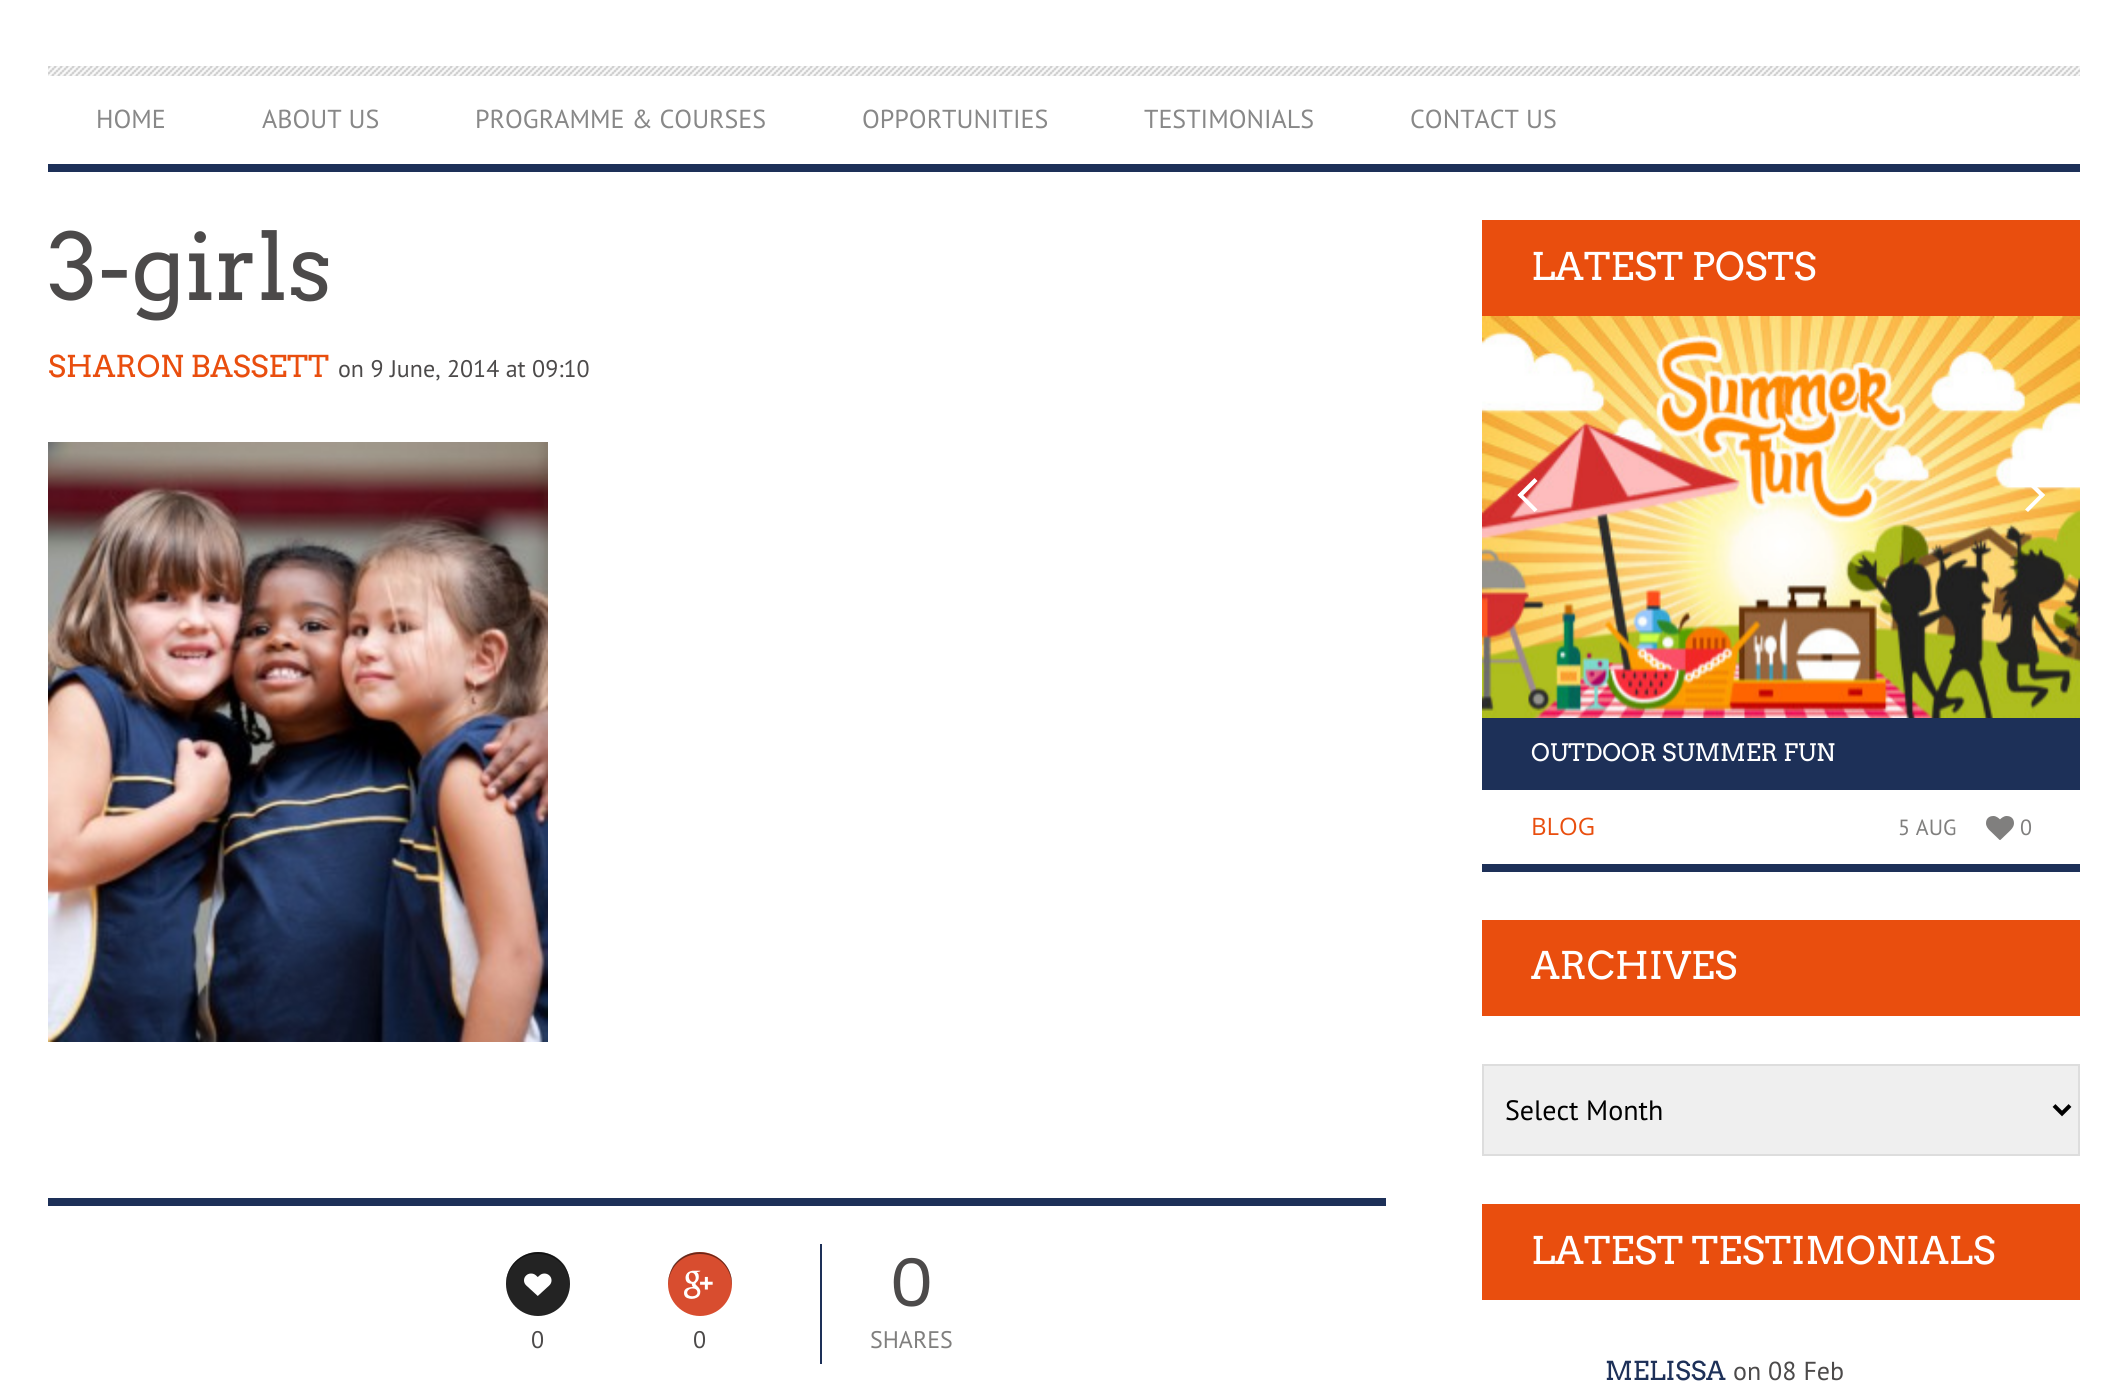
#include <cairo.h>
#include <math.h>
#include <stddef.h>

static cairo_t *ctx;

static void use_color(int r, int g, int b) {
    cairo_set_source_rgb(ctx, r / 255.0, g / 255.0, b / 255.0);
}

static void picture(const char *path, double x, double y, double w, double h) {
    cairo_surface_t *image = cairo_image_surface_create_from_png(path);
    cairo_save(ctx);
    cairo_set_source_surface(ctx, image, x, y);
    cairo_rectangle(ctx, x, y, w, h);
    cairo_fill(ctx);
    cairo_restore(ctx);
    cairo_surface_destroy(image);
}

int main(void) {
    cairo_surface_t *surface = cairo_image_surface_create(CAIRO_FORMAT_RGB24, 2127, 1391);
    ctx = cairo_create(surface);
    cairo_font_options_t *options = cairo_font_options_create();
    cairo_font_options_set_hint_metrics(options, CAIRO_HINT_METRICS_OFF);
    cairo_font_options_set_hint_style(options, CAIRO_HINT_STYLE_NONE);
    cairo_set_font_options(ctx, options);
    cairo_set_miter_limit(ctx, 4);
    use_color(255, 255, 255);
    cairo_paint(ctx);
    picture("img1.png", 48, 66, 2032, 10);
    use_color(29, 48, 88);
    cairo_rectangle(ctx, 48, 164, 2032, 8);
    cairo_fill(ctx);
    cairo_select_font_face(ctx, "PT Sans", CAIRO_FONT_SLANT_NORMAL, CAIRO_FONT_WEIGHT_NORMAL);
    cairo_set_font_size(ctx, 26);
    use_color(136, 136, 136);
    cairo_move_to(ctx, 96, 128);
    cairo_show_text(ctx, "HOME");
    cairo_move_to(ctx, 262, 128);
    cairo_show_text(ctx, "ABOUT US");
    cairo_move_to(ctx, 475, 128);
    cairo_show_text(ctx, "PROGRAMME & COURSES");
    cairo_move_to(ctx, 862, 128);
    cairo_show_text(ctx, "OPPORTUNITIES");
    cairo_move_to(ctx, 1144, 128);
    cairo_show_text(ctx, "TESTIMONIALS");
    cairo_move_to(ctx, 1410, 128);
    cairo_show_text(ctx, "CONTACT US");
    cairo_select_font_face(ctx, "Arvo", CAIRO_FONT_SLANT_NORMAL, CAIRO_FONT_WEIGHT_NORMAL);
    cairo_set_font_size(ctx, 92);
    use_color(76, 74, 74);
    cairo_move_to(ctx, 48, 300);
    cairo_show_text(ctx, "3-girls");
    cairo_set_font_size(ctx, 30);
    use_color(233, 78, 14);
    cairo_move_to(ctx, 48, 377);
    cairo_show_text(ctx, "SHARON BASSETT");
    cairo_select_font_face(ctx, "PT Sans", CAIRO_FONT_SLANT_NORMAL, CAIRO_FONT_WEIGHT_NORMAL);
    cairo_set_font_size(ctx, 24);
    use_color(76, 74, 74);
    cairo_move_to(ctx, 338, 377);
    cairo_show_text(ctx, "on 9 June, 2014 at 09:10");
    picture("img2.png", 48, 442, 500, 600);
    use_color(29, 48, 88);
    cairo_rectangle(ctx, 48, 1198, 1338, 8);
    cairo_fill(ctx);
    use_color(35, 35, 35);
    cairo_arc(ctx, 538, 1284, 32, 0, 2 * M_PI);
    cairo_fill(ctx);
    cairo_set_source_rgba(ctx, 0, 0, 0, 0.5);
    cairo_new_path(ctx);
    cairo_move_to(ctx, 538, 1254);
    cairo_curve_to(ctx, 556, 1254, 569, 1267, 570, 1285);
    cairo_curve_to(ctx, 570, 1278, 568, 1272, 565, 1266);
    cairo_curve_to(ctx, 547, 1240, 505, 1253, 506, 1285);
    cairo_curve_to(ctx, 507, 1267, 520, 1254, 538, 1254);
    cairo_close_path(ctx);
    cairo_fill(ctx);
    picture("img3.png", 524, 1273, 28, 23);
    use_color(76, 74, 74);
    cairo_move_to(ctx, 531, 1348);
    cairo_show_text(ctx, "0");
    use_color(216, 77, 47);
    cairo_new_path(ctx);
    cairo_arc(ctx, 700, 1284, 32, 0, 2 * M_PI);
    cairo_fill(ctx);
    cairo_set_source_rgba(ctx, 0, 0, 0, 0.5);
    cairo_new_path(ctx);
    cairo_move_to(ctx, 700, 1254);
    cairo_curve_to(ctx, 718, 1254, 731, 1267, 732, 1285);
    cairo_curve_to(ctx, 733, 1253, 691, 1240, 673, 1266);
    cairo_curve_to(ctx, 670, 1272, 668, 1278, 668, 1285);
    cairo_curve_to(ctx, 669, 1267, 682, 1254, 700, 1254);
    cairo_close_path(ctx);
    cairo_fill(ctx);
    picture("img4.png", 684, 1270, 29, 29);
    use_color(76, 74, 74);
    cairo_move_to(ctx, 693, 1348);
    cairo_show_text(ctx, "0");
    use_color(29, 48, 88);
    cairo_rectangle(ctx, 820, 1244, 2, 120);
    cairo_fill(ctx);
    cairo_select_font_face(ctx, "Arvo", CAIRO_FONT_SLANT_NORMAL, CAIRO_FONT_WEIGHT_NORMAL);
    cairo_set_font_size(ctx, 64);
    use_color(76, 74, 74);
    cairo_move_to(ctx, 891, 1306);
    cairo_show_text(ctx, "0");
    cairo_select_font_face(ctx, "PT Sans", CAIRO_FONT_SLANT_NORMAL, CAIRO_FONT_WEIGHT_NORMAL);
    cairo_set_font_size(ctx, 24);
    use_color(128, 127, 126);
    cairo_move_to(ctx, 870, 1348);
    cairo_show_text(ctx, "SHARES");
    use_color(233, 78, 14);
    cairo_rectangle(ctx, 1482, 220, 598, 96);
    cairo_fill(ctx);
    cairo_select_font_face(ctx, "Arvo", CAIRO_FONT_SLANT_NORMAL, CAIRO_FONT_WEIGHT_NORMAL);
    cairo_set_font_size(ctx, 38);
    use_color(255, 255, 255);
    cairo_move_to(ctx, 1531, 280);
    cairo_show_text(ctx, "LATEST POSTS");
    picture("img5.png", 1482, 316, 598, 402);
    cairo_new_path(ctx);
    cairo_move_to(ctx, 1520.5, 492.5);
    cairo_line_to(ctx, 1537.5, 509.5);
    cairo_line_to(ctx, 1534.5, 512);
    cairo_line_to(ctx, 1517.5, 495);
    cairo_close_path(ctx);
    cairo_fill(ctx);
    cairo_new_path(ctx);
    cairo_move_to(ctx, 1534.5, 478);
    cairo_line_to(ctx, 1537.5, 481);
    cairo_line_to(ctx, 1520.5, 498);
    cairo_line_to(ctx, 1517.5, 495);
    cairo_close_path(ctx);
    cairo_fill(ctx);
    cairo_new_path(ctx);
    cairo_move_to(ctx, 2025, 481);
    cairo_line_to(ctx, 2028, 478);
    cairo_line_to(ctx, 2045, 495);
    cairo_line_to(ctx, 2042, 498);
    cairo_close_path(ctx);
    cairo_fill(ctx);
    cairo_new_path(ctx);
    cairo_move_to(ctx, 2025, 509.5);
    cairo_line_to(ctx, 2042, 492.5);
    cairo_line_to(ctx, 2045, 495);
    cairo_line_to(ctx, 2028, 512);
    cairo_close_path(ctx);
    cairo_fill(ctx);
    use_color(29, 48, 88);
    cairo_rectangle(ctx, 1482, 864, 598, 8);
    cairo_fill(ctx);
    cairo_rectangle(ctx, 1482, 718, 598, 72);
    cairo_fill(ctx);
    cairo_set_font_size(ctx, 24);
    use_color(255, 255, 255);
    cairo_move_to(ctx, 1531, 761);
    cairo_show_text(ctx, "OUTDOOR SUMMER FUN");
    cairo_select_font_face(ctx, "Open Sans", CAIRO_FONT_SLANT_NORMAL, CAIRO_FONT_WEIGHT_NORMAL);
    use_color(233, 78, 14);
    cairo_move_to(ctx, 1531, 835);
    cairo_show_text(ctx, "BLOG");
    cairo_select_font_face(ctx, "PT Sans", CAIRO_FONT_SLANT_NORMAL, CAIRO_FONT_WEIGHT_NORMAL);
    cairo_set_font_size(ctx, 22);
    use_color(128, 127, 126);
    cairo_move_to(ctx, 1898, 835);
    cairo_show_text(ctx, "5 AUG");
    picture("img6.png", 1986, 816, 28, 24);
    cairo_move_to(ctx, 2020, 835);
    cairo_show_text(ctx, "0");
    use_color(233, 78, 14);
    cairo_rectangle(ctx, 1482, 920, 598, 96);
    cairo_fill(ctx);
    cairo_select_font_face(ctx, "Arvo", CAIRO_FONT_SLANT_NORMAL, CAIRO_FONT_WEIGHT_NORMAL);
    cairo_set_font_size(ctx, 38);
    use_color(255, 255, 255);
    cairo_move_to(ctx, 1531, 979);
    cairo_show_text(ctx, "ARCHIVES");
    use_color(239, 239, 239);
    cairo_rectangle(ctx, 1483, 1065, 596, 90);
    cairo_fill_preserve(ctx);
    use_color(221, 221, 221);
    cairo_stroke(ctx);
    cairo_new_path(ctx);
    cairo_move_to(ctx, 2054, 1105.5);
    cairo_line_to(ctx, 2062, 1113.5);
    cairo_line_to(ctx, 2070, 1105.5);
    use_color(0, 0, 0);
    cairo_set_line_width(ctx, 4);
    cairo_stroke(ctx);
    cairo_select_font_face(ctx, "PT Sans", CAIRO_FONT_SLANT_NORMAL, CAIRO_FONT_WEIGHT_NORMAL);
    cairo_set_font_size(ctx, 28);
    cairo_move_to(ctx, 1505, 1120);
    cairo_show_text(ctx, "Select Month");
    use_color(233, 78, 14);
    cairo_rectangle(ctx, 1482, 1204, 598, 96);
    cairo_fill(ctx);
    cairo_select_font_face(ctx, "Arvo", CAIRO_FONT_SLANT_NORMAL, CAIRO_FONT_WEIGHT_NORMAL);
    cairo_set_font_size(ctx, 38);
    use_color(255, 255, 255);
    cairo_move_to(ctx, 1531, 1264);
    cairo_show_text(ctx, "LATEST TESTIMONIALS");
    cairo_set_font_size(ctx, 26);
    use_color(29, 48, 88);
    cairo_move_to(ctx, 1605, 1380);
    cairo_show_text(ctx, "MELISSA");
    cairo_select_font_face(ctx, "PT Sans", CAIRO_FONT_SLANT_NORMAL, CAIRO_FONT_WEIGHT_NORMAL);
    use_color(76, 74, 74);
    cairo_move_to(ctx, 1733, 1380);
    cairo_show_text(ctx, "on 08 Feb");
    cairo_surface_write_to_png(surface, "result.png");
    cairo_font_options_destroy(options);
    cairo_destroy(ctx);
    cairo_surface_destroy(surface);
    return 0;
}
